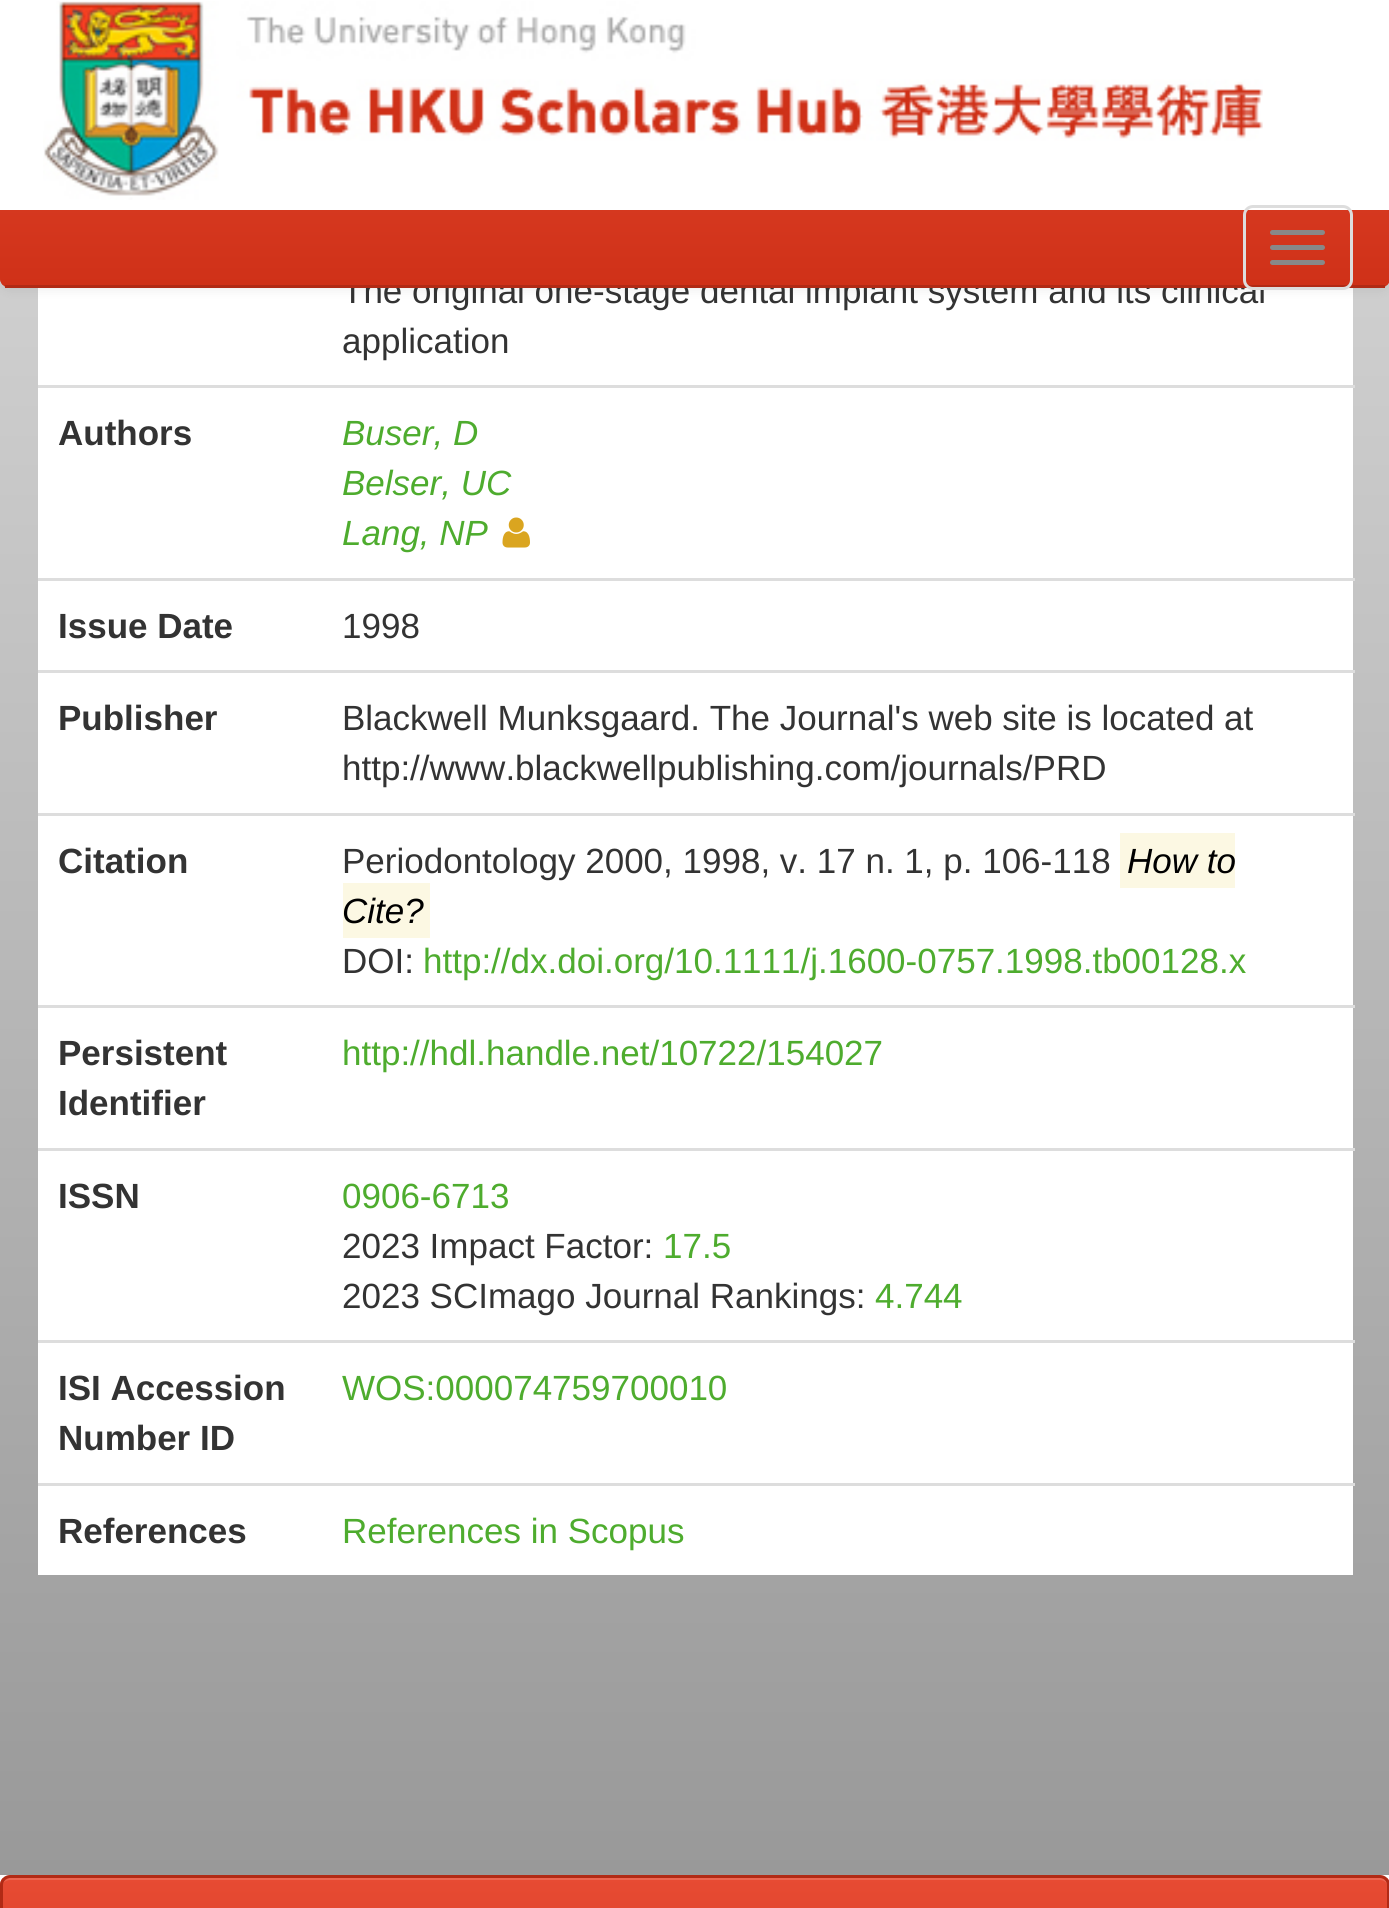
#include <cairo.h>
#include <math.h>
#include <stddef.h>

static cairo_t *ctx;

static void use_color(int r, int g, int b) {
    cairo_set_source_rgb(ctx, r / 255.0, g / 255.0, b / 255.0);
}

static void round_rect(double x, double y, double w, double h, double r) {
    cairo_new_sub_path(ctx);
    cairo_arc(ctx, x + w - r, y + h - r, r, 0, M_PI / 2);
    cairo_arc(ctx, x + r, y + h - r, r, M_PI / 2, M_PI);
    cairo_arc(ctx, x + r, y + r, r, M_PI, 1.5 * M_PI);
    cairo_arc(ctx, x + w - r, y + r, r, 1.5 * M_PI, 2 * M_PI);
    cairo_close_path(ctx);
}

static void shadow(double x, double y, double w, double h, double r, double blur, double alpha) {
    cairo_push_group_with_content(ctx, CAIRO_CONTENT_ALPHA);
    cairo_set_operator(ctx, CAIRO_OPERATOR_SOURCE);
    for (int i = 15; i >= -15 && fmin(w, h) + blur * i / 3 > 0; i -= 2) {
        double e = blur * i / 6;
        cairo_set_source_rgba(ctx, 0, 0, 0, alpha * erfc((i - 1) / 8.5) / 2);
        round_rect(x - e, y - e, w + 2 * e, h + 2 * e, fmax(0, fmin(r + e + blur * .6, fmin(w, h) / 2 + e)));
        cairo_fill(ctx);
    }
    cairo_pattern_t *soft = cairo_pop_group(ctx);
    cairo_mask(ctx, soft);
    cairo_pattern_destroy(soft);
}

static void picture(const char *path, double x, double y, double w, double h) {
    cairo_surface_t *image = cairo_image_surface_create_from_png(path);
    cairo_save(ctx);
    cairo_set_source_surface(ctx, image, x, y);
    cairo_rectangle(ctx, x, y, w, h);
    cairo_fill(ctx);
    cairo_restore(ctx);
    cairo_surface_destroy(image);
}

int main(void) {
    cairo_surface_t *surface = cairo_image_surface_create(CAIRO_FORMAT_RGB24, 1389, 1908);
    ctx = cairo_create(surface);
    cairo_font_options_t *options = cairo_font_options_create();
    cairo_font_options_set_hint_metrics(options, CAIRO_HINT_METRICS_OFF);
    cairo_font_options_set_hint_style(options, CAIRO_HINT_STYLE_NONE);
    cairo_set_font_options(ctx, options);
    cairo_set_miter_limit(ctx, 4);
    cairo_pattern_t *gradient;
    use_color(255, 255, 255);
    cairo_paint(ctx);
    gradient = cairo_pattern_create_linear(695, -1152, 695, 1875);
    cairo_pattern_add_color_stop_rgba(gradient, 0, 1, 1, 1, 1);
    cairo_pattern_add_color_stop_rgba(gradient, 1, 0.6, 0.6, 0.6, 1);
    cairo_set_source(ctx, gradient);
    cairo_pattern_destroy(gradient);
    cairo_rectangle(ctx, 0, 278, 1389, 1597);
    cairo_fill(ctx);
    use_color(255, 255, 255);
    cairo_rectangle(ctx, 38, 288, 1315, 1287);
    cairo_fill(ctx);
    use_color(0, 0, 0);
    shadow(0, 3, 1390, 287, 10, 6, 0.07);
    cairo_select_font_face(ctx, "Liberation Sans", CAIRO_FONT_SLANT_NORMAL, CAIRO_FONT_WEIGHT_NORMAL);
    cairo_set_font_size(ctx, 35);
    use_color(51, 51, 51);
    cairo_move_to(ctx, 342, 303);
    cairo_show_text(ctx, "The original one-stage dental implant system and its clinical");
    use_color(207, 49, 24);
    round_rect(0, 0, 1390, 288, 10);
    cairo_fill(ctx);
    cairo_save(ctx);
    round_rect(0, 0, 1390, 288, 10);
    cairo_clip(ctx);
    gradient = cairo_pattern_create_linear(695, 0, 695, 285);
    cairo_pattern_add_color_stop_rgba(gradient, 0, 0.906, 0.294, 0.2, 1);
    cairo_pattern_add_color_stop_rgba(gradient, 1, 0.812, 0.192, 0.094, 1);
    cairo_set_source(ctx, gradient);
    cairo_pattern_destroy(gradient);
    cairo_new_path(ctx);
    cairo_move_to(ctx, 10, 0);
    cairo_line_to(ctx, 1380, 0);
    cairo_curve_to(ctx, 1385.5, 0, 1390, 4.5, 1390, 10);
    cairo_line_to(ctx, 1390, 285);
    cairo_line_to(ctx, 0, 285);
    cairo_line_to(ctx, 0, 10);
    cairo_curve_to(ctx, 0, 4.5, 4.5, 0, 10, 0);
    cairo_close_path(ctx);
    cairo_fill(ctx);
    cairo_restore(ctx);
    use_color(177, 42, 21);
    cairo_rectangle(ctx, 5, 285, 1380, 3);
    cairo_fill(ctx);
    use_color(255, 255, 255);
    cairo_rectangle(ctx, 0, 0, 1389, 210);
    cairo_fill(ctx);
    picture("img1.png", 43, 1, 1220, 199);
    round_rect(1244.5, 206.5, 107, 82, 8.5);
    use_color(221, 221, 221);
    cairo_set_line_width(ctx, 3);
    cairo_stroke(ctx);
    use_color(136, 136, 136);
    round_rect(1270, 230, 55, 5, 2.5);
    cairo_fill(ctx);
    round_rect(1270, 245, 55, 5, 2.5);
    cairo_fill(ctx);
    round_rect(1270, 260, 55, 5, 2.5);
    cairo_fill(ctx);
    use_color(51, 51, 51);
    cairo_move_to(ctx, 342, 353);
    cairo_show_text(ctx, "application");
    cairo_select_font_face(ctx, "Liberation Sans", CAIRO_FONT_SLANT_NORMAL, CAIRO_FONT_WEIGHT_BOLD);
    cairo_move_to(ctx, 58, 445);
    cairo_show_text(ctx, "Authors");
    use_color(221, 221, 221);
    cairo_rectangle(ctx, 38, 385, 1317, 3);
    cairo_fill(ctx);
    cairo_select_font_face(ctx, "Liberation Sans", CAIRO_FONT_SLANT_ITALIC, CAIRO_FONT_WEIGHT_NORMAL);
    use_color(78, 172, 46);
    cairo_move_to(ctx, 342, 445);
    cairo_show_text(ctx, "Buser, D");
    cairo_move_to(ctx, 342, 495);
    cairo_show_text(ctx, "Belser, UC");
    cairo_move_to(ctx, 342, 545);
    cairo_show_text(ctx, "Lang, NP");
    picture("img2.png", 502, 517, 28, 31);
    cairo_select_font_face(ctx, "Liberation Sans", CAIRO_FONT_SLANT_NORMAL, CAIRO_FONT_WEIGHT_BOLD);
    use_color(51, 51, 51);
    cairo_move_to(ctx, 58, 638);
    cairo_show_text(ctx, "Issue Date");
    use_color(221, 221, 221);
    cairo_rectangle(ctx, 38, 578, 1317, 3);
    cairo_fill(ctx);
    cairo_select_font_face(ctx, "Liberation Sans", CAIRO_FONT_SLANT_NORMAL, CAIRO_FONT_WEIGHT_NORMAL);
    use_color(51, 51, 51);
    cairo_move_to(ctx, 342, 638);
    cairo_show_text(ctx, "1998");
    cairo_select_font_face(ctx, "Liberation Sans", CAIRO_FONT_SLANT_NORMAL, CAIRO_FONT_WEIGHT_BOLD);
    cairo_move_to(ctx, 58, 730);
    cairo_show_text(ctx, "Publisher");
    use_color(221, 221, 221);
    cairo_rectangle(ctx, 38, 670, 1317, 3);
    cairo_fill(ctx);
    cairo_select_font_face(ctx, "Liberation Sans", CAIRO_FONT_SLANT_NORMAL, CAIRO_FONT_WEIGHT_NORMAL);
    use_color(51, 51, 51);
    cairo_move_to(ctx, 342, 730);
    cairo_show_text(ctx, "Blackwell Munksgaard. The Journal's web site is located at");
    cairo_move_to(ctx, 342, 780);
    cairo_show_text(ctx, "http://www.blackwellpublishing.com/journals/PRD");
    cairo_select_font_face(ctx, "Liberation Sans", CAIRO_FONT_SLANT_NORMAL, CAIRO_FONT_WEIGHT_BOLD);
    cairo_move_to(ctx, 58, 873);
    cairo_show_text(ctx, "Citation");
    use_color(221, 221, 221);
    cairo_rectangle(ctx, 38, 813, 1317, 3);
    cairo_fill(ctx);
    cairo_select_font_face(ctx, "Liberation Sans", CAIRO_FONT_SLANT_NORMAL, CAIRO_FONT_WEIGHT_NORMAL);
    use_color(51, 51, 51);
    cairo_move_to(ctx, 342, 873);
    cairo_show_text(ctx, "Periodontology 2000, 1998, v. 17 n. 1, p. 106-118");
    use_color(252, 248, 227);
    cairo_rectangle(ctx, 1120, 833, 115, 55);
    cairo_fill(ctx);
    cairo_select_font_face(ctx, "Liberation Sans", CAIRO_FONT_SLANT_ITALIC, CAIRO_FONT_WEIGHT_NORMAL);
    use_color(0, 0, 0);
    cairo_move_to(ctx, 1127, 873);
    cairo_show_text(ctx, "How to");
    use_color(252, 248, 227);
    cairo_rectangle(ctx, 343, 883, 87, 55);
    cairo_fill(ctx);
    use_color(0, 0, 0);
    cairo_move_to(ctx, 342, 923);
    cairo_show_text(ctx, "Cite?");
    cairo_select_font_face(ctx, "Liberation Sans", CAIRO_FONT_SLANT_NORMAL, CAIRO_FONT_WEIGHT_NORMAL);
    use_color(51, 51, 51);
    cairo_move_to(ctx, 342, 973);
    cairo_show_text(ctx, "DOI:");
    use_color(78, 172, 46);
    cairo_move_to(ctx, 423, 973);
    cairo_show_text(ctx, "http://dx.doi.org/10.1111/j.1600-0757.1998.tb00128.x");
    cairo_select_font_face(ctx, "Liberation Sans", CAIRO_FONT_SLANT_NORMAL, CAIRO_FONT_WEIGHT_BOLD);
    use_color(51, 51, 51);
    cairo_move_to(ctx, 58, 1065);
    cairo_show_text(ctx, "Persistent");
    cairo_move_to(ctx, 58, 1115);
    cairo_show_text(ctx, "Identifier");
    use_color(221, 221, 221);
    cairo_rectangle(ctx, 38, 1005, 1317, 3);
    cairo_fill(ctx);
    cairo_select_font_face(ctx, "Liberation Sans", CAIRO_FONT_SLANT_NORMAL, CAIRO_FONT_WEIGHT_NORMAL);
    use_color(78, 172, 46);
    cairo_move_to(ctx, 342, 1065);
    cairo_show_text(ctx, "http://hdl.handle.net/10722/154027");
    cairo_select_font_face(ctx, "Liberation Sans", CAIRO_FONT_SLANT_NORMAL, CAIRO_FONT_WEIGHT_BOLD);
    use_color(51, 51, 51);
    cairo_move_to(ctx, 58, 1208);
    cairo_show_text(ctx, "ISSN");
    use_color(221, 221, 221);
    cairo_rectangle(ctx, 38, 1148, 1317, 3);
    cairo_fill(ctx);
    cairo_select_font_face(ctx, "Liberation Sans", CAIRO_FONT_SLANT_NORMAL, CAIRO_FONT_WEIGHT_NORMAL);
    use_color(78, 172, 46);
    cairo_move_to(ctx, 342, 1208);
    cairo_show_text(ctx, "0906-6713");
    use_color(51, 51, 51);
    cairo_move_to(ctx, 342, 1258);
    cairo_show_text(ctx, "2023 Impact Factor:");
    use_color(78, 172, 46);
    cairo_move_to(ctx, 663, 1258);
    cairo_show_text(ctx, "17.5");
    use_color(51, 51, 51);
    cairo_move_to(ctx, 342, 1308);
    cairo_show_text(ctx, "2023 SCImago Journal Rankings:");
    use_color(78, 172, 46);
    cairo_move_to(ctx, 875, 1308);
    cairo_show_text(ctx, "4.744");
    cairo_select_font_face(ctx, "Liberation Sans", CAIRO_FONT_SLANT_NORMAL, CAIRO_FONT_WEIGHT_BOLD);
    use_color(51, 51, 51);
    cairo_move_to(ctx, 58, 1400);
    cairo_show_text(ctx, "ISI Accession");
    cairo_move_to(ctx, 58, 1450);
    cairo_show_text(ctx, "Number ID");
    use_color(221, 221, 221);
    cairo_rectangle(ctx, 38, 1340, 1317, 3);
    cairo_fill(ctx);
    cairo_select_font_face(ctx, "Liberation Sans", CAIRO_FONT_SLANT_NORMAL, CAIRO_FONT_WEIGHT_NORMAL);
    use_color(78, 172, 46);
    cairo_move_to(ctx, 342, 1400);
    cairo_show_text(ctx, "WOS:000074759700010");
    cairo_select_font_face(ctx, "Liberation Sans", CAIRO_FONT_SLANT_NORMAL, CAIRO_FONT_WEIGHT_BOLD);
    use_color(51, 51, 51);
    cairo_move_to(ctx, 58, 1543);
    cairo_show_text(ctx, "References");
    use_color(221, 221, 221);
    cairo_rectangle(ctx, 38, 1483, 1317, 3);
    cairo_fill(ctx);
    cairo_select_font_face(ctx, "Liberation Sans", CAIRO_FONT_SLANT_NORMAL, CAIRO_FONT_WEIGHT_NORMAL);
    use_color(78, 172, 46);
    cairo_move_to(ctx, 342, 1543);
    cairo_show_text(ctx, "References in Scopus");
    cairo_save(ctx);
    round_rect(0, 1875, 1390, 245, 10);
    cairo_clip(ctx);
    gradient = cairo_pattern_create_linear(695, 1878, 695, 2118);
    cairo_pattern_add_color_stop_rgba(gradient, 0, 0.906, 0.294, 0.2, 1);
    cairo_pattern_add_color_stop_rgba(gradient, 1, 0.812, 0.192, 0.094, 1);
    cairo_set_source(ctx, gradient);
    cairo_pattern_destroy(gradient);
    cairo_rectangle(ctx, 0, 1878, 1389, 30);
    cairo_fill(ctx);
    cairo_restore(ctx);
    use_color(235, 102, 82);
    cairo_new_path(ctx);
    cairo_move_to(ctx, 10, 1880);
    cairo_line_to(ctx, 1380, 1880);
    cairo_curve_to(ctx, 1384, 1880, 1388, 1883, 1388, 1888);
    cairo_line_to(ctx, 1388, 1886);
    cairo_curve_to(ctx, 1388, 1882, 1384, 1878, 1380, 1878);
    cairo_line_to(ctx, 11, 1878);
    cairo_curve_to(ctx, 8, 1878, 5, 1880, 3, 1883);
    cairo_curve_to(ctx, 5, 1881, 8, 1880, 10, 1880);
    cairo_close_path(ctx);
    cairo_fill(ctx);
    round_rect(1.5, 1876.5, 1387, 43, 8.5);
    use_color(177, 42, 21);
    cairo_stroke(ctx);
    cairo_surface_write_to_png(surface, "result.png");
    cairo_font_options_destroy(options);
    cairo_destroy(ctx);
    cairo_surface_destroy(surface);
    return 0;
}
